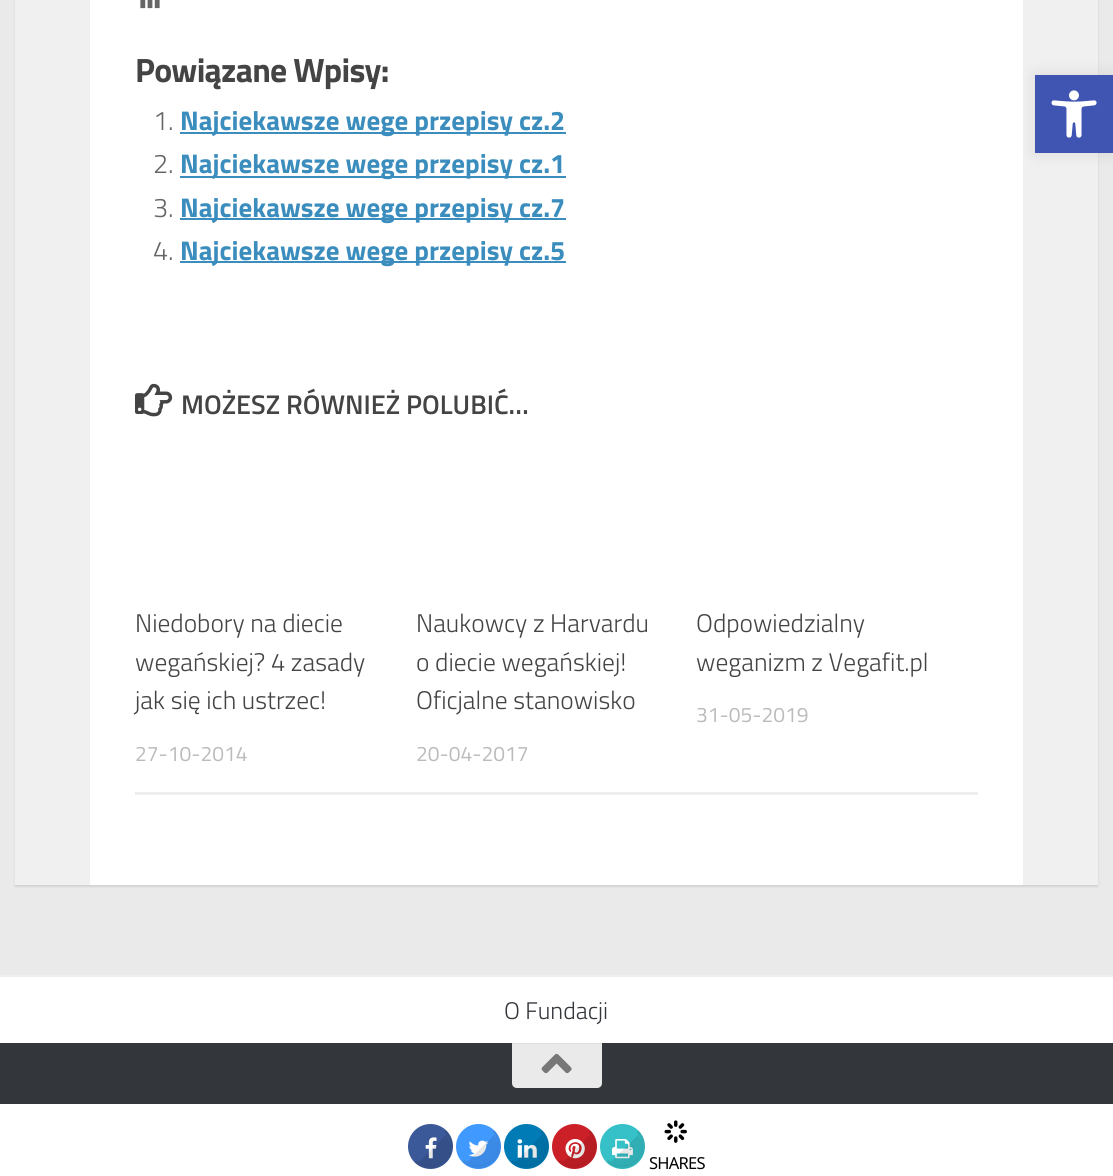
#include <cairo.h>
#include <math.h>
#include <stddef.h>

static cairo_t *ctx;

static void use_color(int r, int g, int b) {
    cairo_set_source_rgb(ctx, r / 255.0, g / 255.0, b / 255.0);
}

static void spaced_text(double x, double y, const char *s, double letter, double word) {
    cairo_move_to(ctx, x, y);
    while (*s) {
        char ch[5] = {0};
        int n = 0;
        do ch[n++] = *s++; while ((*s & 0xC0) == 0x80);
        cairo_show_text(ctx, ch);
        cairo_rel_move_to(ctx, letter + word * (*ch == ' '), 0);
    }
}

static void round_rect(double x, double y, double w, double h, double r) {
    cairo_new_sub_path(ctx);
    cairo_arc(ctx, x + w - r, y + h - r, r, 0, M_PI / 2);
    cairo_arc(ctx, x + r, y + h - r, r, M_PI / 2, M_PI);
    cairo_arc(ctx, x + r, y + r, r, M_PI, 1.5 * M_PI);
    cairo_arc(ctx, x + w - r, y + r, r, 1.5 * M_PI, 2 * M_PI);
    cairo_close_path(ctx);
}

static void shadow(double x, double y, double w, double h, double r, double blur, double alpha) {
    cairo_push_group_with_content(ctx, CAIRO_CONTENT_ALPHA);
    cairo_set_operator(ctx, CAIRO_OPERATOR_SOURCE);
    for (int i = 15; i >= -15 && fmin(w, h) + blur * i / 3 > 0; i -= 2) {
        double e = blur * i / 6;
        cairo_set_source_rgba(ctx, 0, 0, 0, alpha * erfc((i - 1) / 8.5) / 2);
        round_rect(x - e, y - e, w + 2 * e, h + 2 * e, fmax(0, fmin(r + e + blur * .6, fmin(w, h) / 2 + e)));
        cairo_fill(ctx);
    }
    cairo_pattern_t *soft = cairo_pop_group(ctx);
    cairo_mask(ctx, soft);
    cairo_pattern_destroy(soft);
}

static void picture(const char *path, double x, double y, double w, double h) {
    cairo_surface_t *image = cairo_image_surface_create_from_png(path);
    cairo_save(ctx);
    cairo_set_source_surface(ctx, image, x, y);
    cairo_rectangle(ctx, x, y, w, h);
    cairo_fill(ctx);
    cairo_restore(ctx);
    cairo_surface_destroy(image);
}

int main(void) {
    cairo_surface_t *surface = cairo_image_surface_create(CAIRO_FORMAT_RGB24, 1113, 1176);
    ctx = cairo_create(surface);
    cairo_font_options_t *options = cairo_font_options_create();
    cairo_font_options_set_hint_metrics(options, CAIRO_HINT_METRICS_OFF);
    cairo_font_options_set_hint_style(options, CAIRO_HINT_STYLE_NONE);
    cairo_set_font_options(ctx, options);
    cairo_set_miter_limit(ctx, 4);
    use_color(234, 234, 234);
    cairo_paint(ctx);
    use_color(0, 0, 0);
    shadow(15, -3, 1083, 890, 0, 1, 0.1);
    use_color(255, 255, 255);
    cairo_rectangle(ctx, 90, 0, 933, 885);
    cairo_fill(ctx);
    use_color(240, 240, 240);
    cairo_rectangle(ctx, 15, 0, 75, 885);
    cairo_fill(ctx);
    picture("img1.png", 140, 0, 20, 9);
    cairo_select_font_face(ctx, "Titillium Web", CAIRO_FONT_SLANT_NORMAL, CAIRO_FONT_WEIGHT_BOLD);
    cairo_set_font_size(ctx, 33.75);
    use_color(68, 68, 68);
    spaced_text(135, 82, "Powiązane Wpisy:", -0.75, 0);
    cairo_select_font_face(ctx, "Titillium Web Light", CAIRO_FONT_SLANT_NORMAL, CAIRO_FONT_WEIGHT_NORMAL);
    cairo_set_font_size(ctx, 27);
    use_color(102, 102, 102);
    cairo_move_to(ctx, 153, 130);
    cairo_show_text(ctx, "1.");
    use_color(59, 141, 189);
    cairo_rectangle(ctx, 180, 132, 386, 2);
    cairo_fill(ctx);
    cairo_select_font_face(ctx, "Titillium Web", CAIRO_FONT_SLANT_NORMAL, CAIRO_FONT_WEIGHT_BOLD);
    cairo_move_to(ctx, 180, 130);
    cairo_show_text(ctx, "Najciekawsze wege przepisy cz.2");
    cairo_select_font_face(ctx, "Titillium Web Light", CAIRO_FONT_SLANT_NORMAL, CAIRO_FONT_WEIGHT_NORMAL);
    use_color(102, 102, 102);
    cairo_move_to(ctx, 153, 173);
    cairo_show_text(ctx, "2.");
    use_color(59, 141, 189);
    cairo_rectangle(ctx, 180, 176, 386, 2);
    cairo_fill(ctx);
    cairo_select_font_face(ctx, "Titillium Web", CAIRO_FONT_SLANT_NORMAL, CAIRO_FONT_WEIGHT_BOLD);
    cairo_move_to(ctx, 180, 173);
    cairo_show_text(ctx, "Najciekawsze wege przepisy cz.1");
    cairo_select_font_face(ctx, "Titillium Web Light", CAIRO_FONT_SLANT_NORMAL, CAIRO_FONT_WEIGHT_NORMAL);
    use_color(102, 102, 102);
    cairo_move_to(ctx, 153, 217);
    cairo_show_text(ctx, "3.");
    use_color(59, 141, 189);
    cairo_rectangle(ctx, 180, 218, 386, 2);
    cairo_fill(ctx);
    cairo_select_font_face(ctx, "Titillium Web", CAIRO_FONT_SLANT_NORMAL, CAIRO_FONT_WEIGHT_BOLD);
    cairo_move_to(ctx, 180, 217);
    cairo_show_text(ctx, "Najciekawsze wege przepisy cz.7");
    cairo_select_font_face(ctx, "Titillium Web Light", CAIRO_FONT_SLANT_NORMAL, CAIRO_FONT_WEIGHT_NORMAL);
    use_color(102, 102, 102);
    cairo_move_to(ctx, 153, 260);
    cairo_show_text(ctx, "4.");
    use_color(59, 141, 189);
    cairo_rectangle(ctx, 180, 261, 386, 2);
    cairo_fill(ctx);
    cairo_select_font_face(ctx, "Titillium Web", CAIRO_FONT_SLANT_NORMAL, CAIRO_FONT_WEIGHT_BOLD);
    cairo_move_to(ctx, 180, 260);
    cairo_show_text(ctx, "Najciekawsze wege przepisy cz.5");
    picture("img2.png", 135, 383, 38, 34);
    cairo_select_font_face(ctx, "Titillium Web SemiBold", CAIRO_FONT_SLANT_NORMAL, CAIRO_FONT_WEIGHT_NORMAL);
    use_color(68, 68, 68);
    cairo_move_to(ctx, 181, 414);
    cairo_show_text(ctx, "MOŻESZ RÓWNIEŻ POLUBIĆ…");
    use_color(238, 238, 238);
    cairo_rectangle(ctx, 135, 792, 843, 3);
    cairo_fill(ctx);
    cairo_select_font_face(ctx, "Titillium Web Light", CAIRO_FONT_SLANT_NORMAL, CAIRO_FONT_WEIGHT_NORMAL);
    cairo_set_font_size(ctx, 25.5);
    use_color(68, 68, 68);
    cairo_move_to(ctx, 135, 632);
    cairo_show_text(ctx, "Niedobory na diecie");
    cairo_move_to(ctx, 135, 671);
    cairo_show_text(ctx, "wegańskiej? 4 zasady");
    cairo_move_to(ctx, 135, 709);
    cairo_show_text(ctx, "jak się ich ustrzec!");
    cairo_select_font_face(ctx, "Titillium Web", CAIRO_FONT_SLANT_NORMAL, CAIRO_FONT_WEIGHT_NORMAL);
    cairo_set_font_size(ctx, 21);
    use_color(187, 187, 187);
    cairo_move_to(ctx, 135, 761);
    cairo_show_text(ctx, "27-10-2014");
    cairo_select_font_face(ctx, "Titillium Web Light", CAIRO_FONT_SLANT_NORMAL, CAIRO_FONT_WEIGHT_NORMAL);
    cairo_set_font_size(ctx, 25.5);
    use_color(68, 68, 68);
    cairo_move_to(ctx, 416, 632);
    cairo_show_text(ctx, "Naukowcy z Harvardu");
    cairo_move_to(ctx, 416, 671);
    cairo_show_text(ctx, "o diecie wegańskiej!");
    cairo_move_to(ctx, 416, 709);
    cairo_show_text(ctx, "Oficjalne stanowisko");
    cairo_select_font_face(ctx, "Titillium Web", CAIRO_FONT_SLANT_NORMAL, CAIRO_FONT_WEIGHT_NORMAL);
    cairo_set_font_size(ctx, 21);
    use_color(187, 187, 187);
    cairo_move_to(ctx, 416, 761);
    cairo_show_text(ctx, "20-04-2017");
    cairo_select_font_face(ctx, "Titillium Web Light", CAIRO_FONT_SLANT_NORMAL, CAIRO_FONT_WEIGHT_NORMAL);
    cairo_set_font_size(ctx, 25.5);
    use_color(68, 68, 68);
    cairo_move_to(ctx, 696, 632);
    cairo_show_text(ctx, "Odpowiedzialny");
    cairo_move_to(ctx, 696, 671);
    cairo_show_text(ctx, "weganizm z Vegafit.pl");
    cairo_select_font_face(ctx, "Titillium Web", CAIRO_FONT_SLANT_NORMAL, CAIRO_FONT_WEIGHT_NORMAL);
    cairo_set_font_size(ctx, 21);
    use_color(187, 187, 187);
    cairo_move_to(ctx, 696, 722);
    cairo_show_text(ctx, "31-05-2019");
    use_color(240, 240, 240);
    cairo_rectangle(ctx, 1023, 0, 75, 885);
    cairo_fill(ctx);
    use_color(255, 255, 255);
    cairo_rectangle(ctx, 0, 977, 1113, 66);
    cairo_fill(ctx);
    use_color(238, 238, 238);
    cairo_rectangle(ctx, 0, 975, 1113, 2);
    cairo_fill(ctx);
    cairo_select_font_face(ctx, "Titillium Web Light", CAIRO_FONT_SLANT_NORMAL, CAIRO_FONT_WEIGHT_NORMAL);
    cairo_set_font_size(ctx, 24);
    use_color(51, 54, 59);
    cairo_move_to(ctx, 504, 1019);
    cairo_show_text(ctx, "O Fundacji");
    cairo_rectangle(ctx, 0, 1043, 1113, 61);
    cairo_fill(ctx);
    use_color(234, 234, 234);
    cairo_new_path(ctx);
    cairo_move_to(ctx, 512, 1043);
    cairo_line_to(ctx, 602, 1043);
    cairo_line_to(ctx, 602, 1083);
    cairo_curve_to(ctx, 602, 1086, 600, 1088, 597, 1088);
    cairo_line_to(ctx, 517, 1088);
    cairo_curve_to(ctx, 514, 1088, 512, 1086, 512, 1083);
    cairo_close_path(ctx);
    cairo_fill(ctx);
    use_color(222, 222, 222);
    cairo_rectangle(ctx, 512, 1043, 90, 1);
    cairo_fill(ctx);
    picture("img3.png", 541, 1053, 31, 21);
    use_color(0, 0, 0);
    shadow(1035, 75, 78, 78, 0, 7.5, 0.1);
    use_color(64, 84, 178);
    cairo_rectangle(ctx, 1035, 75, 78, 78);
    cairo_fill(ctx);
    picture("img4.png", 1051, 90, 46, 48);
    use_color(255, 255, 255);
    cairo_rectangle(ctx, 0, 1104, 1113, 72);
    cairo_fill(ctx);
    use_color(59, 89, 152);
    cairo_arc(ctx, 430.5, 1146.5, 22.5, 0, 2 * M_PI);
    cairo_fill(ctx);
    cairo_new_path(ctx);
    cairo_move_to(ctx, 445.5, 1131);
    cairo_curve_to(ctx, 460, 1145.5, 446.5, 1170.5, 426.5, 1166.5);
    cairo_curve_to(ctx, 422.5, 1166, 418.5, 1164, 415.5, 1161);
    cairo_set_source_rgba(ctx, 0, 0, 0, 0.1);
    cairo_set_line_width(ctx, 3);
    cairo_stroke(ctx);
    picture("img5.png", 425, 1137, 12, 22);
    cairo_new_path(ctx);
    cairo_move_to(ctx, 419, 1162);
    cairo_line_to(ctx, 446, 1135);
    cairo_curve_to(ctx, 459.5, 1152.5, 436.5, 1175.5, 419, 1162);
    cairo_close_path(ctx);
    cairo_fill(ctx);
    use_color(64, 153, 255);
    cairo_arc(ctx, 478.5, 1146.5, 22.5, 0, 2 * M_PI);
    cairo_fill(ctx);
    cairo_new_path(ctx);
    cairo_move_to(ctx, 493.5, 1131);
    cairo_curve_to(ctx, 496.5, 1134, 498.5, 1138, 499, 1142);
    cairo_curve_to(ctx, 503, 1162, 478, 1175.5, 463.5, 1161);
    cairo_set_source_rgba(ctx, 0, 0, 0, 0.1);
    cairo_stroke(ctx);
    picture("img6.png", 468, 1140, 21, 17);
    cairo_new_path(ctx);
    cairo_move_to(ctx, 467, 1162);
    cairo_line_to(ctx, 494, 1135);
    cairo_curve_to(ctx, 507.5, 1152.5, 484.5, 1175.5, 467, 1162);
    cairo_close_path(ctx);
    cairo_fill(ctx);
    use_color(0, 123, 182);
    cairo_arc(ctx, 526.5, 1146.5, 22.5, 0, 2 * M_PI);
    cairo_fill(ctx);
    cairo_new_path(ctx);
    cairo_move_to(ctx, 541.5, 1131);
    cairo_curve_to(ctx, 556, 1145.5, 542.5, 1170.5, 522.5, 1166.5);
    cairo_curve_to(ctx, 518.5, 1166, 514.5, 1164, 511.5, 1161);
    cairo_set_source_rgba(ctx, 0, 0, 0, 0.1);
    cairo_stroke(ctx);
    picture("img7.png", 517, 1139, 20, 19);
    cairo_new_path(ctx);
    cairo_move_to(ctx, 515, 1162);
    cairo_line_to(ctx, 542, 1135);
    cairo_curve_to(ctx, 555.5, 1152.5, 532.5, 1175.5, 515, 1162);
    cairo_close_path(ctx);
    cairo_fill(ctx);
    use_color(203, 32, 39);
    cairo_arc(ctx, 574.5, 1146.5, 22.5, 0, 2 * M_PI);
    cairo_fill(ctx);
    cairo_new_path(ctx);
    cairo_move_to(ctx, 589.5, 1131);
    cairo_curve_to(ctx, 592.5, 1134, 594.5, 1138, 595, 1142);
    cairo_curve_to(ctx, 599, 1162, 574, 1175.5, 559.5, 1161);
    cairo_set_source_rgba(ctx, 0, 0, 0, 0.1);
    cairo_stroke(ctx);
    picture("img8.png", 565, 1139, 20, 20);
    cairo_new_path(ctx);
    cairo_move_to(ctx, 563, 1162);
    cairo_line_to(ctx, 590, 1135);
    cairo_curve_to(ctx, 603.5, 1152.5, 580.5, 1175.5, 563, 1162);
    cairo_close_path(ctx);
    cairo_fill(ctx);
    use_color(54, 193, 200);
    cairo_arc(ctx, 622.5, 1146.5, 22.5, 0, 2 * M_PI);
    cairo_fill(ctx);
    cairo_new_path(ctx);
    cairo_move_to(ctx, 637.5, 1131);
    cairo_curve_to(ctx, 640.5, 1134, 642.5, 1138, 643, 1142);
    cairo_curve_to(ctx, 647, 1162, 622, 1175.5, 607.5, 1161);
    cairo_set_source_rgba(ctx, 0, 0, 0, 0.1);
    cairo_stroke(ctx);
    picture("img9.png", 612, 1139, 21, 20);
    cairo_new_path(ctx);
    cairo_move_to(ctx, 611, 1162);
    cairo_line_to(ctx, 638, 1135);
    cairo_curve_to(ctx, 651.5, 1152.5, 628.5, 1175.5, 611, 1162);
    cairo_close_path(ctx);
    cairo_fill(ctx);
    picture("img10.png", 664, 1120, 23, 23);
    cairo_select_font_face(ctx, "Noto Sans", CAIRO_FONT_SLANT_NORMAL, CAIRO_FONT_WEIGHT_NORMAL);
    cairo_set_font_size(ctx, 16.5);
    use_color(0, 0, 0);
    spaced_text(649, 1169, "SHARES", -0.75, 0);
    cairo_surface_write_to_png(surface, "result.png");
    cairo_font_options_destroy(options);
    cairo_destroy(ctx);
    cairo_surface_destroy(surface);
    return 0;
}
